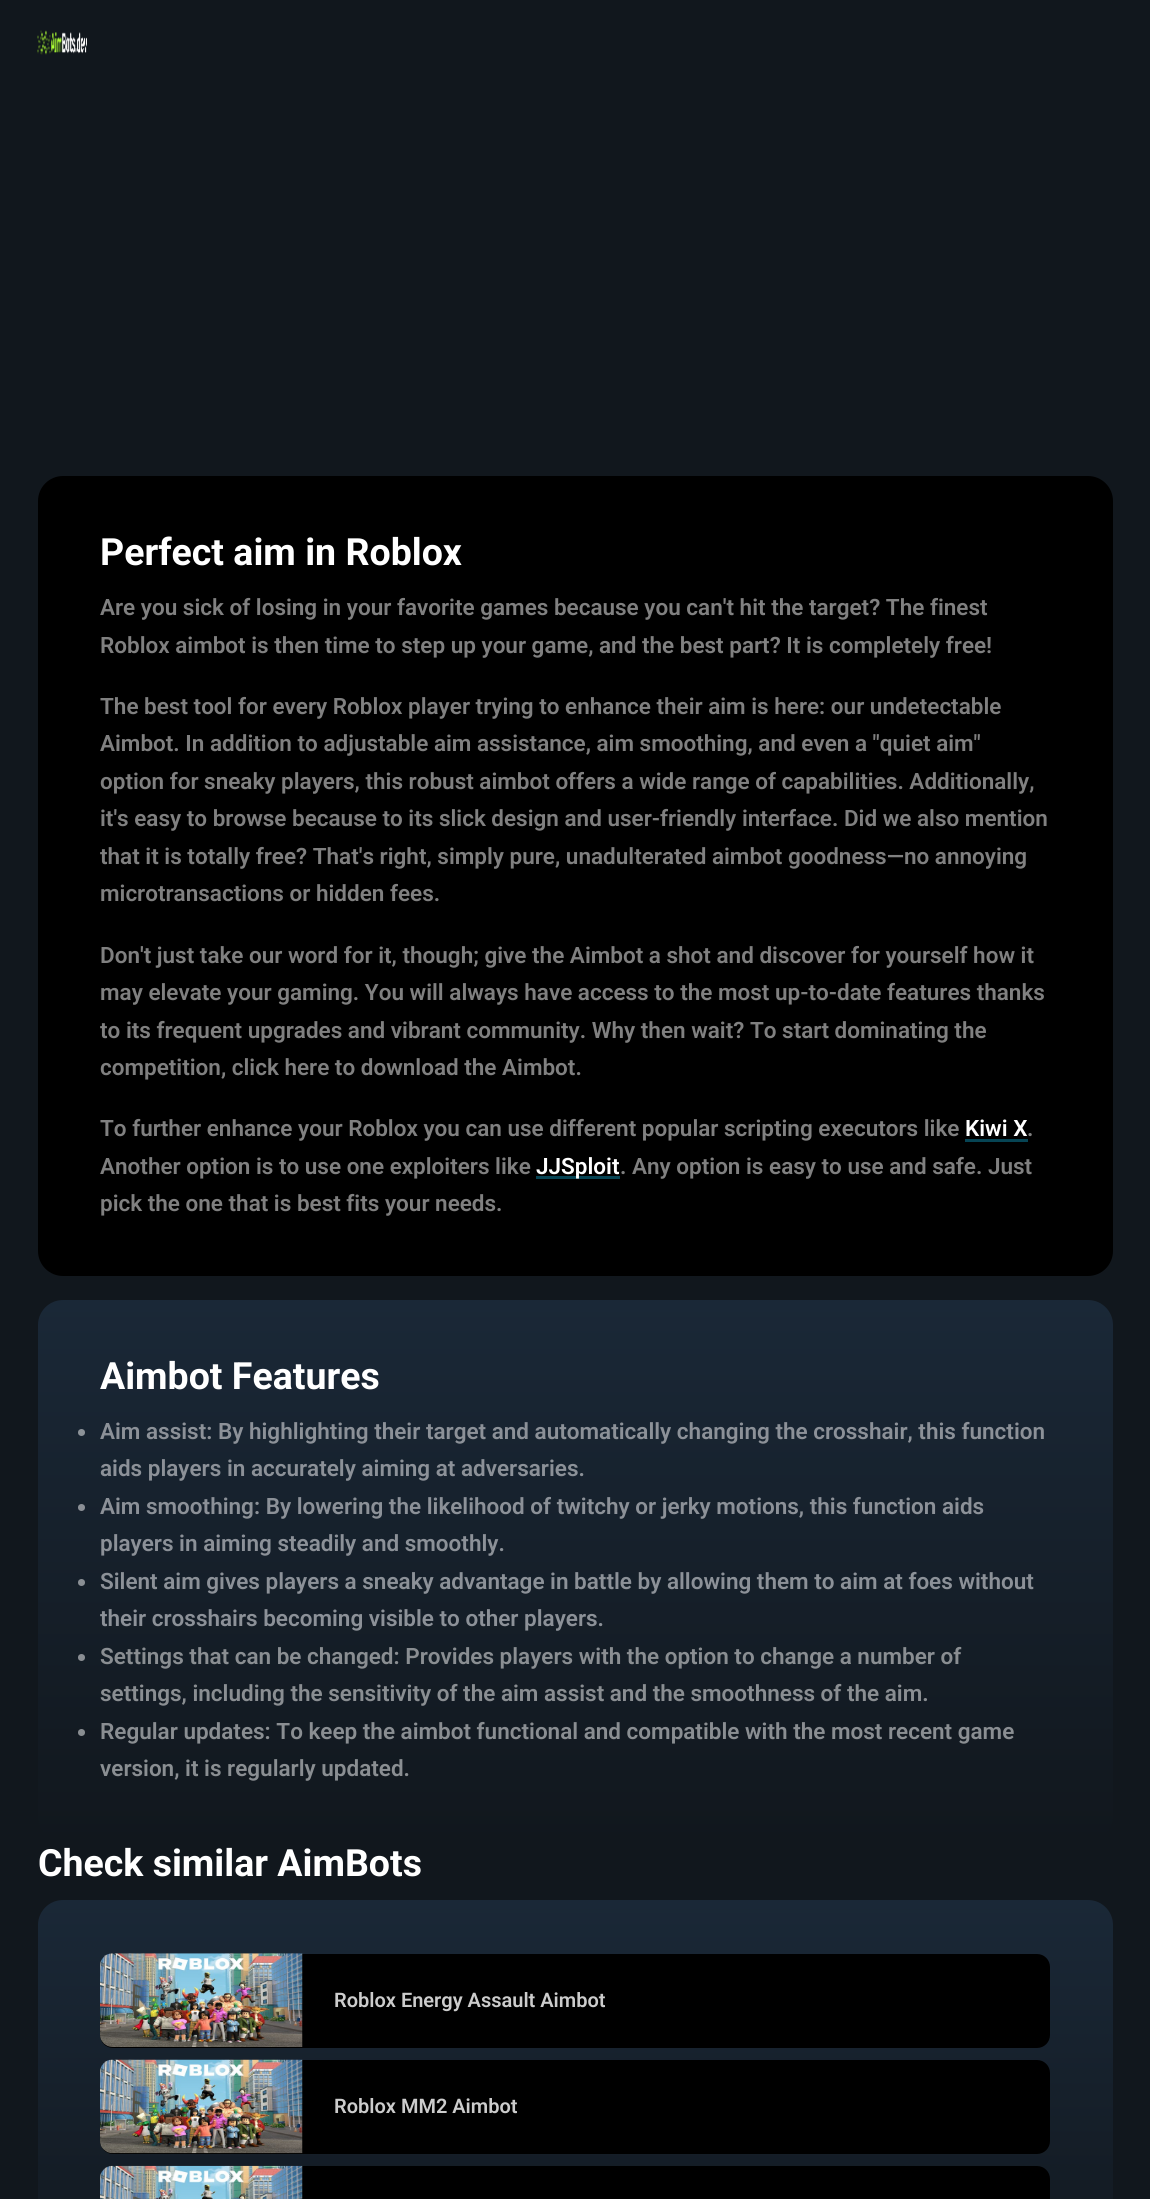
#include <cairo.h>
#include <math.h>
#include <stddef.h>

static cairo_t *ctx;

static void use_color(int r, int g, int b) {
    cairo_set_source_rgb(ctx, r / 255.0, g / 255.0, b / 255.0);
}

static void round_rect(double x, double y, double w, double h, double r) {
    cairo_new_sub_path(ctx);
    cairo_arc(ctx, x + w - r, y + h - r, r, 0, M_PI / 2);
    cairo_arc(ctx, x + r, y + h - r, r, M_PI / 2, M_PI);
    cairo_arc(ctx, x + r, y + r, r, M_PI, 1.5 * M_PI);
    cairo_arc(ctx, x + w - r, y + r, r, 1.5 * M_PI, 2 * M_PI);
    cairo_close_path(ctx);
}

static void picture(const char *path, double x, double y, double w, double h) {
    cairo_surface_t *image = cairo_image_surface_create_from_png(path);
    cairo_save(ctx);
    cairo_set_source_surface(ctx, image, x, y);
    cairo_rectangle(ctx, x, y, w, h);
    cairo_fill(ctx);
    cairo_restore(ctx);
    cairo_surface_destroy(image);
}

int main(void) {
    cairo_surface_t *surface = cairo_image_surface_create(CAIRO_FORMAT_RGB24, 1150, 2199);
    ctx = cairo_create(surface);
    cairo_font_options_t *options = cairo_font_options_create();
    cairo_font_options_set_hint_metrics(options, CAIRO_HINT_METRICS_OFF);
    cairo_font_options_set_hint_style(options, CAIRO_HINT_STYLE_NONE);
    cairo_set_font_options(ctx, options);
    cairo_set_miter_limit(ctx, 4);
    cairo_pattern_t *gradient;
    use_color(17, 23, 29);
    cairo_paint(ctx);
    picture("img1.png", 37, 30, 50, 25);
    picture("img2.png", 37, 30, 50, 25);
    use_color(0, 0, 0);
    round_rect(38, 476, 1075, 800, 25);
    cairo_fill(ctx);
    cairo_select_font_face(ctx, "Roboto", CAIRO_FONT_SLANT_NORMAL, CAIRO_FONT_WEIGHT_BOLD);
    cairo_set_font_size(ctx, 37.5);
    use_color(255, 255, 255);
    cairo_move_to(ctx, 100, 565);
    cairo_show_text(ctx, "Perfect aim in Roblox");
    cairo_select_font_face(ctx, "Roboto SemiBold", CAIRO_FONT_SLANT_NORMAL, CAIRO_FONT_WEIGHT_NORMAL);
    cairo_set_font_size(ctx, 22.5);
    use_color(128, 128, 128);
    cairo_move_to(ctx, 100, 615);
    cairo_show_text(ctx, "Are you sick of losing in your favorite games because you can't hit the target? The finest");
    cairo_move_to(ctx, 100, 653);
    cairo_show_text(ctx, "Roblox aimbot is then time to step up your game, and the best part? It is completely free!");
    cairo_move_to(ctx, 100, 714);
    cairo_show_text(ctx, "The best tool for every Roblox player trying to enhance their aim is here: our undetectable");
    cairo_move_to(ctx, 100, 751);
    cairo_show_text(ctx, "Aimbot. In addition to adjustable aim assistance, aim smoothing, and even a \"quiet aim\"");
    cairo_move_to(ctx, 100, 789);
    cairo_show_text(ctx, "option for sneaky players, this robust aimbot offers a wide range of capabilities. Additionally,");
    cairo_move_to(ctx, 100, 826);
    cairo_show_text(ctx, "it's easy to browse because to its slick design and user-friendly interface. Did we also mention");
    cairo_move_to(ctx, 100, 864);
    cairo_show_text(ctx, "that it is totally free? That's right, simply pure, unadulterated aimbot goodness—no annoying");
    cairo_move_to(ctx, 100, 901);
    cairo_show_text(ctx, "microtransactions or hidden fees.");
    cairo_move_to(ctx, 100, 963);
    cairo_show_text(ctx, "Don't just take our word for it, though; give the Aimbot a shot and discover for yourself how it");
    cairo_move_to(ctx, 100, 1000);
    cairo_show_text(ctx, "may elevate your gaming. You will always have access to the most up-to-date features thanks");
    cairo_move_to(ctx, 100, 1038);
    cairo_show_text(ctx, "to its frequent upgrades and vibrant community. Why then wait? To start dominating the");
    cairo_move_to(ctx, 100, 1075);
    cairo_show_text(ctx, "competition, click here to download the Aimbot.");
    cairo_move_to(ctx, 100, 1136);
    cairo_show_text(ctx, "To further enhance your Roblox you can use different popular scripting executors like");
    use_color(255, 255, 255);
    cairo_move_to(ctx, 965, 1136);
    cairo_show_text(ctx, "Kiwi X");
    use_color(6, 68, 84);
    cairo_rectangle(ctx, 965, 1139, 63, 3);
    cairo_fill(ctx);
    use_color(128, 128, 128);
    cairo_move_to(ctx, 1027, 1136);
    cairo_show_text(ctx, ".");
    cairo_move_to(ctx, 100, 1174);
    cairo_show_text(ctx, "Another option is to use one exploiters like");
    use_color(6, 68, 84);
    cairo_rectangle(ctx, 536, 1176, 84, 3);
    cairo_fill(ctx);
    use_color(255, 255, 255);
    cairo_move_to(ctx, 536, 1174);
    cairo_show_text(ctx, "JJSploit");
    use_color(128, 128, 128);
    cairo_move_to(ctx, 620, 1174);
    cairo_show_text(ctx, ". Any option is easy to use and safe. Just");
    cairo_move_to(ctx, 100, 1211);
    cairo_show_text(ctx, "pick the one that is best fits your needs.");
    gradient = cairo_pattern_create_linear(575, 1300, 575, 1841);
    cairo_pattern_add_color_stop_rgba(gradient, 0, 0.102, 0.157, 0.216, 1);
    cairo_pattern_add_color_stop_rgba(gradient, 1, 0.067, 0.09, 0.114, 1);
    cairo_set_source(ctx, gradient);
    cairo_pattern_destroy(gradient);
    round_rect(38, 1300, 1075, 541, 25);
    cairo_fill(ctx);
    cairo_select_font_face(ctx, "Roboto", CAIRO_FONT_SLANT_NORMAL, CAIRO_FONT_WEIGHT_BOLD);
    cairo_set_font_size(ctx, 37.5);
    use_color(255, 255, 255);
    cairo_move_to(ctx, 100, 1389);
    cairo_show_text(ctx, "Aimbot Features");
    use_color(140, 146, 152);
    cairo_new_path(ctx);
    cairo_arc(ctx, 81.5, 1432.5, 3.5, 0, 2 * M_PI);
    cairo_fill(ctx);
    cairo_select_font_face(ctx, "Roboto SemiBold", CAIRO_FONT_SLANT_NORMAL, CAIRO_FONT_WEIGHT_NORMAL);
    cairo_set_font_size(ctx, 22.5);
    use_color(140, 145, 152);
    cairo_move_to(ctx, 100, 1439);
    cairo_show_text(ctx, "Aim assist: By highlighting their target and automatically changing the crosshair, this function");
    cairo_move_to(ctx, 100, 1476);
    cairo_show_text(ctx, "aids players in accurately aiming at adversaries.");
    use_color(139, 144, 150);
    cairo_new_path(ctx);
    cairo_arc(ctx, 81.5, 1507.5, 3.5, 0, 2 * M_PI);
    cairo_fill(ctx);
    use_color(140, 145, 152);
    cairo_move_to(ctx, 100, 1514);
    cairo_show_text(ctx, "Aim smoothing: By lowering the likelihood of twitchy or jerky motions, this function aids");
    cairo_move_to(ctx, 100, 1551);
    cairo_show_text(ctx, "players in aiming steadily and smoothly.");
    use_color(138, 143, 148);
    cairo_new_path(ctx);
    cairo_arc(ctx, 81.5, 1582.5, 3.5, 0, 2 * M_PI);
    cairo_fill(ctx);
    use_color(140, 145, 152);
    cairo_move_to(ctx, 100, 1589);
    cairo_show_text(ctx, "Silent aim gives players a sneaky advantage in battle by allowing them to aim at foes without");
    cairo_move_to(ctx, 100, 1626);
    cairo_show_text(ctx, "their crosshairs becoming visible to other players.");
    use_color(138, 142, 147);
    cairo_new_path(ctx);
    cairo_arc(ctx, 81.5, 1657.5, 3.5, 0, 2 * M_PI);
    cairo_fill(ctx);
    use_color(138, 142, 146);
    cairo_move_to(ctx, 100, 1664);
    cairo_show_text(ctx, "Settings that can be changed: Provides players with the option to change a number of");
    cairo_move_to(ctx, 100, 1701);
    cairo_show_text(ctx, "settings, including the sensitivity of the aim assist and the smoothness of the aim.");
    use_color(137, 141, 145);
    cairo_new_path(ctx);
    cairo_arc(ctx, 81.5, 1732.5, 3.5, 0, 2 * M_PI);
    cairo_fill(ctx);
    use_color(138, 142, 146);
    cairo_move_to(ctx, 100, 1739);
    cairo_show_text(ctx, "Regular updates: To keep the aimbot functional and compatible with the most recent game");
    cairo_move_to(ctx, 100, 1776);
    cairo_show_text(ctx, "version, it is regularly updated.");
    cairo_select_font_face(ctx, "Roboto", CAIRO_FONT_SLANT_NORMAL, CAIRO_FONT_WEIGHT_BOLD);
    cairo_set_font_size(ctx, 37.5);
    use_color(255, 255, 255);
    cairo_move_to(ctx, 38, 1876);
    cairo_show_text(ctx, "Check similar AimBots");
    gradient = cairo_pattern_create_linear(575, 1900, 575, 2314);
    cairo_pattern_add_color_stop_rgba(gradient, 0, 0.102, 0.157, 0.216, 1);
    cairo_pattern_add_color_stop_rgba(gradient, 1, 0.067, 0.09, 0.114, 1);
    cairo_set_source(ctx, gradient);
    cairo_pattern_destroy(gradient);
    round_rect(38, 1900, 1075, 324, 25);
    cairo_fill(ctx);
    use_color(0, 0, 0);
    round_rect(100, 1954, 950, 94, 13);
    cairo_fill(ctx);
    picture("img3.png", 100, 1953, 203, 94);
    cairo_select_font_face(ctx, "Roboto SemiBold", CAIRO_FONT_SLANT_NORMAL, CAIRO_FONT_WEIGHT_NORMAL);
    cairo_set_font_size(ctx, 20);
    use_color(204, 204, 204);
    cairo_move_to(ctx, 334, 2007);
    cairo_show_text(ctx, "Roblox Energy Assault Aimbot");
    use_color(0, 0, 0);
    round_rect(100, 2060, 950, 94, 13);
    cairo_fill(ctx);
    picture("img4.png", 100, 2059, 203, 95);
    use_color(204, 204, 204);
    cairo_move_to(ctx, 334, 2113);
    cairo_show_text(ctx, "Roblox MM2 Aimbot");
    use_color(0, 0, 0);
    round_rect(100, 2166, 950, 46, 13);
    cairo_fill(ctx);
    picture("img5.png", 100, 2165, 203, 34);
    cairo_surface_write_to_png(surface, "result.png");
    cairo_font_options_destroy(options);
    cairo_destroy(ctx);
    cairo_surface_destroy(surface);
    return 0;
}
